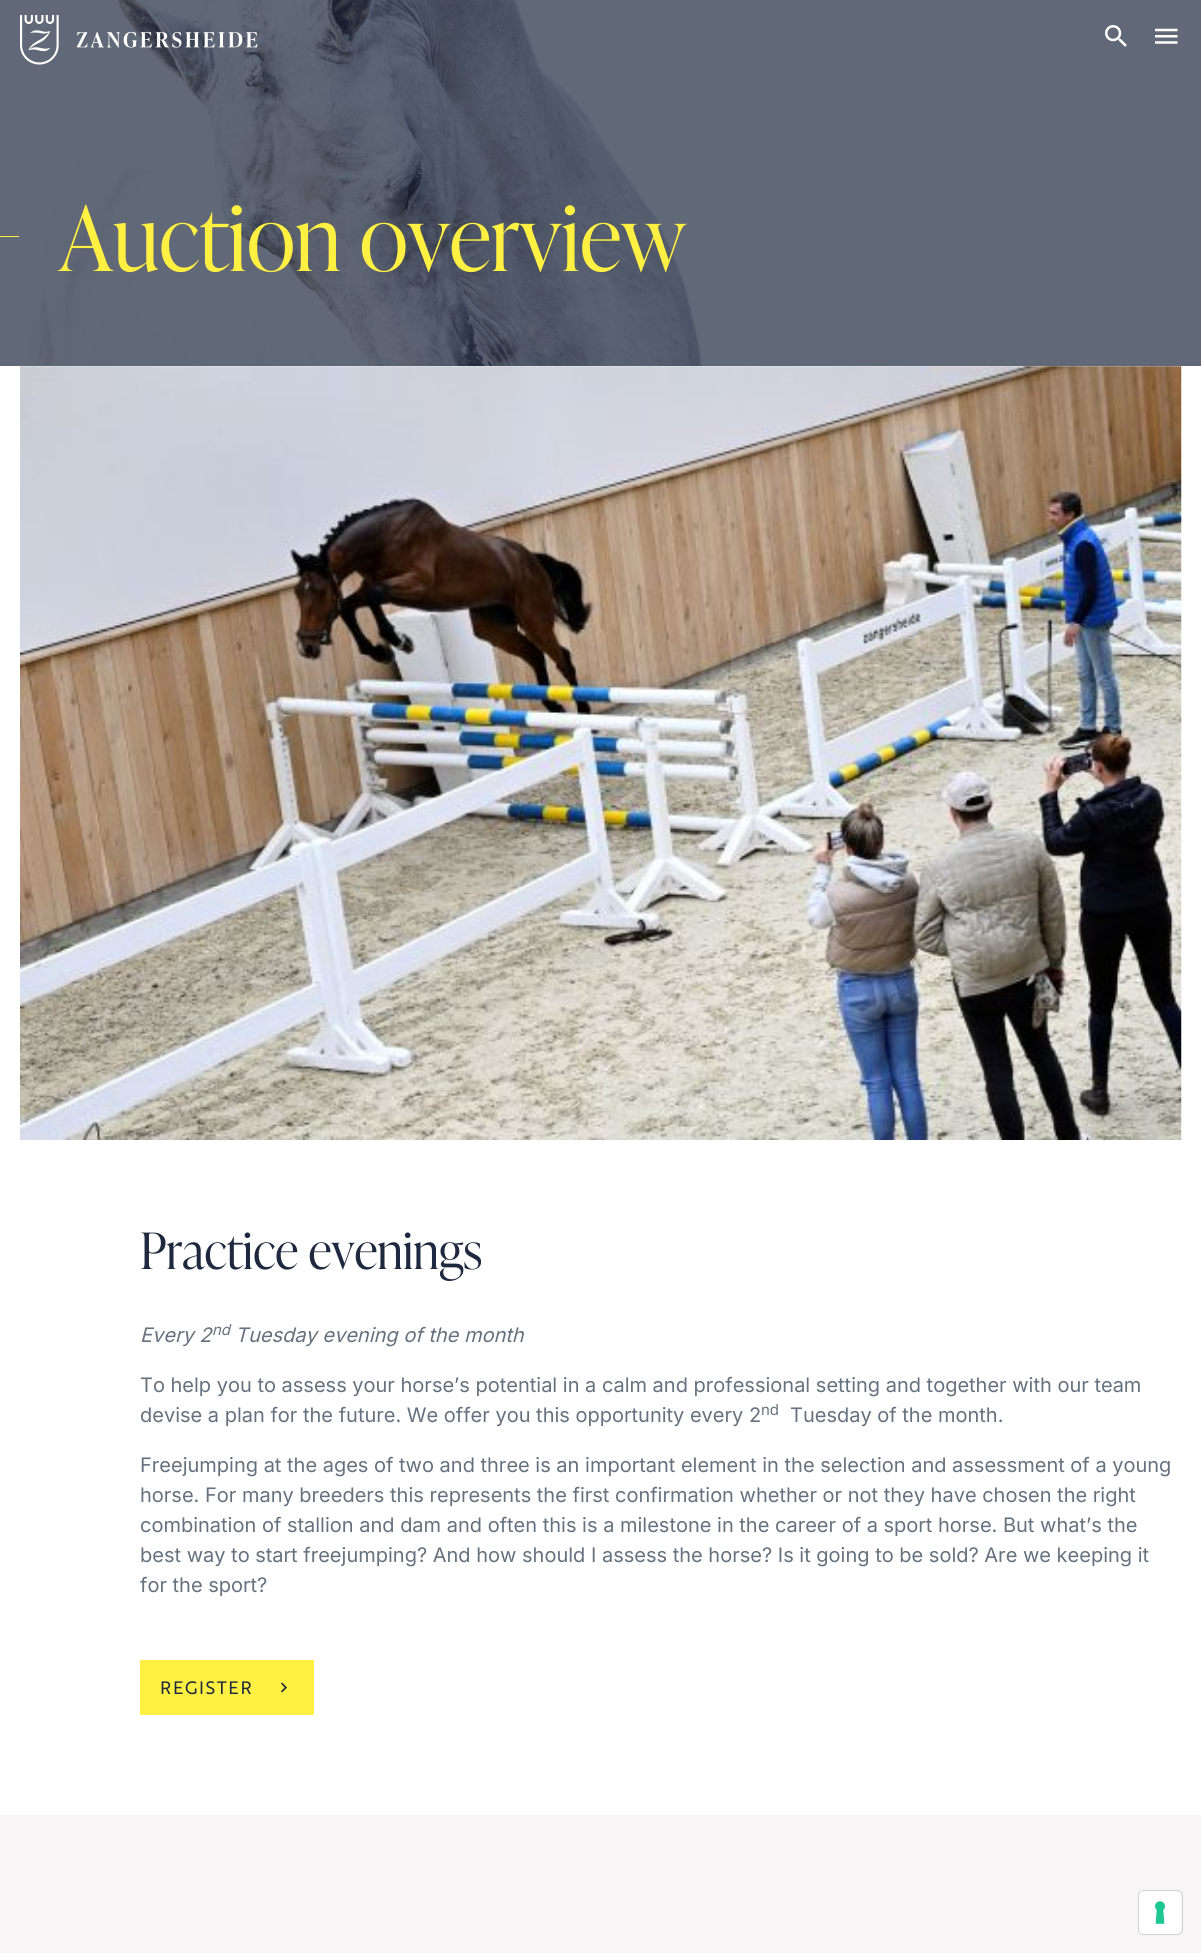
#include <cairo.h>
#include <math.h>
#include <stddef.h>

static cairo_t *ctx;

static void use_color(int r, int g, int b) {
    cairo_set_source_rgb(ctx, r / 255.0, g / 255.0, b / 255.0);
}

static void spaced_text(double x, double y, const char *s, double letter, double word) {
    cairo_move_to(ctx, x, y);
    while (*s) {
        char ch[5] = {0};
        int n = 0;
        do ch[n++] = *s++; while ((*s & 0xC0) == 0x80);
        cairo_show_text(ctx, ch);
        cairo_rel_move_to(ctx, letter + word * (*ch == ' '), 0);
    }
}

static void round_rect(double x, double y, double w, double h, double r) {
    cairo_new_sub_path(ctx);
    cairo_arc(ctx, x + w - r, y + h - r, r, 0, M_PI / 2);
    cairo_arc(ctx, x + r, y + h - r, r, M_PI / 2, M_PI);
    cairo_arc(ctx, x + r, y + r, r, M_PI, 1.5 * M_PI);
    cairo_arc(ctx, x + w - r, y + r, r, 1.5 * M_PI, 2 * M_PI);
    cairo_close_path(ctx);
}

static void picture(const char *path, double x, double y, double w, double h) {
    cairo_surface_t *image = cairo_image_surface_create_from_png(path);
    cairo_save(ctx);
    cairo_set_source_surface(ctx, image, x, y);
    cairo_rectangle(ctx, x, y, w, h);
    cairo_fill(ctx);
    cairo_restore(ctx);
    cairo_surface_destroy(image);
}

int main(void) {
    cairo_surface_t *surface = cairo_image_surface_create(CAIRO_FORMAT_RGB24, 1201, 1953);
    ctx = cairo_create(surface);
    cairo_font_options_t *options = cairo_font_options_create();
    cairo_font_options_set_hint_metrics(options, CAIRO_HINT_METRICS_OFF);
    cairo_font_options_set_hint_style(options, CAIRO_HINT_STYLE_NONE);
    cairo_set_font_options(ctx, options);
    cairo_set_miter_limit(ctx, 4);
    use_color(255, 255, 255);
    cairo_paint(ctx);
    picture("img4.png", 0, 0, 1201, 366);
    picture("img1.png", 20, 15, 238, 50);
    picture("img2.png", 1105, 25, 22, 22);
    picture("img3.png", 1155, 28, 23, 16);
    use_color(255, 240, 66);
    cairo_rectangle(ctx, 0, 236, 19, 1);
    cairo_fill(ctx);
    cairo_select_font_face(ctx, "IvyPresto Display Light", CAIRO_FONT_SLANT_NORMAL, CAIRO_FONT_WEIGHT_NORMAL);
    cairo_set_font_size(ctx, 90);
    cairo_move_to(ctx, 59, 271);
    cairo_show_text(ctx, "Auction overview");
    picture("img5.png", 20, 366, 1162, 774);
    cairo_set_font_size(ctx, 50);
    use_color(30, 40, 62);
    cairo_move_to(ctx, 140, 1269);
    cairo_show_text(ctx, "Practice evenings");
    cairo_select_font_face(ctx, "Inter", CAIRO_FONT_SLANT_ITALIC, CAIRO_FONT_WEIGHT_NORMAL);
    cairo_set_font_size(ctx, 20);
    use_color(101, 114, 125);
    cairo_move_to(ctx, 140, 1342);
    cairo_show_text(ctx, "Every 2");
    cairo_set_font_size(ctx, 15);
    cairo_move_to(ctx, 212, 1335);
    cairo_show_text(ctx, "nd");
    cairo_set_font_size(ctx, 20);
    cairo_move_to(ctx, 235, 1342);
    cairo_show_text(ctx, "Tuesday evening of the month");
    cairo_select_font_face(ctx, "Inter", CAIRO_FONT_SLANT_NORMAL, CAIRO_FONT_WEIGHT_NORMAL);
    cairo_move_to(ctx, 140, 1392);
    cairo_show_text(ctx, "To help you to assess your horse’s potential in a calm and professional setting and together with our team");
    cairo_move_to(ctx, 140, 1422);
    cairo_show_text(ctx, "devise a plan for the future. We offer you this opportunity every 2");
    cairo_set_font_size(ctx, 15);
    cairo_move_to(ctx, 761, 1415);
    cairo_show_text(ctx, "nd");
    cairo_set_font_size(ctx, 20);
    cairo_move_to(ctx, 790, 1422);
    cairo_show_text(ctx, "Tuesday of the month.");
    cairo_move_to(ctx, 140, 1472);
    cairo_show_text(ctx, "Freejumping at the ages of two and three is an important element in the selection and assessment of a young");
    cairo_move_to(ctx, 140, 1502);
    cairo_show_text(ctx, "horse. For many breeders this represents the first confirmation whether or not they have chosen the right");
    cairo_move_to(ctx, 140, 1532);
    cairo_show_text(ctx, "combination of stallion and dam and often this is a milestone in the career of a sport horse. But what’s the");
    cairo_move_to(ctx, 140, 1562);
    cairo_show_text(ctx, "best way to start freejumping? And how should I assess the horse? Is it going to be sold? Are we keeping it");
    cairo_move_to(ctx, 140, 1592);
    cairo_show_text(ctx, "for the sport?");
    use_color(255, 240, 66);
    cairo_rectangle(ctx, 140, 1660, 174, 55);
    cairo_fill(ctx);
    cairo_select_font_face(ctx, "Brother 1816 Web", CAIRO_FONT_SLANT_NORMAL, CAIRO_FONT_WEIGHT_NORMAL);
    cairo_set_font_size(ctx, 17.5);
    use_color(30, 40, 62);
    spaced_text(160, 1694, "REGISTER", 1.75, 0);
    picture("img6.png", 281, 1682, 6, 11);
    use_color(247, 245, 245);
    cairo_rectangle(ctx, 0, 1815, 1201, 138);
    cairo_fill(ctx);
    round_rect(1138.5, 1890.5, 44, 44, 5.5);
    use_color(210, 208, 208);
    cairo_set_line_width(ctx, 1);
    cairo_stroke(ctx);
    use_color(255, 255, 255);
    round_rect(1139, 1891, 42, 43, 5);
    cairo_fill(ctx);
    picture("img7.png", 1155, 1901, 10, 23);
    cairo_surface_write_to_png(surface, "result.png");
    cairo_font_options_destroy(options);
    cairo_destroy(ctx);
    cairo_surface_destroy(surface);
    return 0;
}
